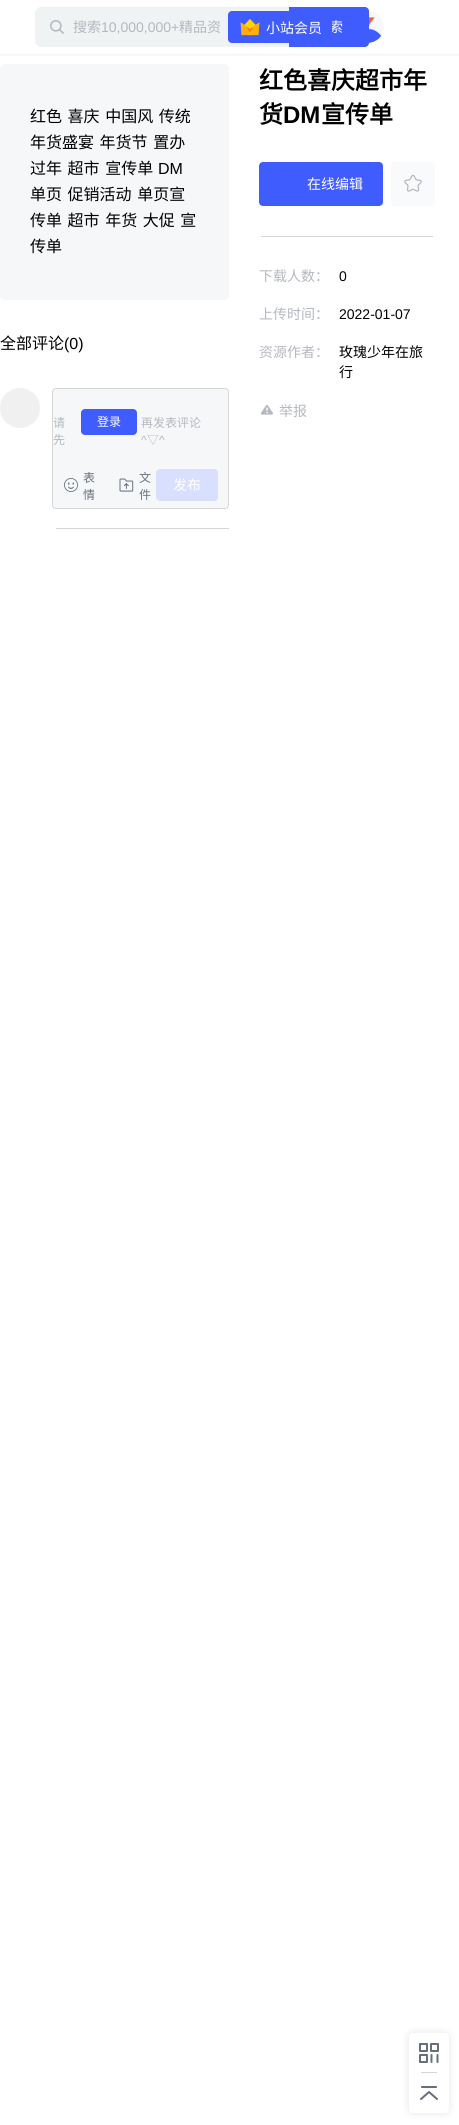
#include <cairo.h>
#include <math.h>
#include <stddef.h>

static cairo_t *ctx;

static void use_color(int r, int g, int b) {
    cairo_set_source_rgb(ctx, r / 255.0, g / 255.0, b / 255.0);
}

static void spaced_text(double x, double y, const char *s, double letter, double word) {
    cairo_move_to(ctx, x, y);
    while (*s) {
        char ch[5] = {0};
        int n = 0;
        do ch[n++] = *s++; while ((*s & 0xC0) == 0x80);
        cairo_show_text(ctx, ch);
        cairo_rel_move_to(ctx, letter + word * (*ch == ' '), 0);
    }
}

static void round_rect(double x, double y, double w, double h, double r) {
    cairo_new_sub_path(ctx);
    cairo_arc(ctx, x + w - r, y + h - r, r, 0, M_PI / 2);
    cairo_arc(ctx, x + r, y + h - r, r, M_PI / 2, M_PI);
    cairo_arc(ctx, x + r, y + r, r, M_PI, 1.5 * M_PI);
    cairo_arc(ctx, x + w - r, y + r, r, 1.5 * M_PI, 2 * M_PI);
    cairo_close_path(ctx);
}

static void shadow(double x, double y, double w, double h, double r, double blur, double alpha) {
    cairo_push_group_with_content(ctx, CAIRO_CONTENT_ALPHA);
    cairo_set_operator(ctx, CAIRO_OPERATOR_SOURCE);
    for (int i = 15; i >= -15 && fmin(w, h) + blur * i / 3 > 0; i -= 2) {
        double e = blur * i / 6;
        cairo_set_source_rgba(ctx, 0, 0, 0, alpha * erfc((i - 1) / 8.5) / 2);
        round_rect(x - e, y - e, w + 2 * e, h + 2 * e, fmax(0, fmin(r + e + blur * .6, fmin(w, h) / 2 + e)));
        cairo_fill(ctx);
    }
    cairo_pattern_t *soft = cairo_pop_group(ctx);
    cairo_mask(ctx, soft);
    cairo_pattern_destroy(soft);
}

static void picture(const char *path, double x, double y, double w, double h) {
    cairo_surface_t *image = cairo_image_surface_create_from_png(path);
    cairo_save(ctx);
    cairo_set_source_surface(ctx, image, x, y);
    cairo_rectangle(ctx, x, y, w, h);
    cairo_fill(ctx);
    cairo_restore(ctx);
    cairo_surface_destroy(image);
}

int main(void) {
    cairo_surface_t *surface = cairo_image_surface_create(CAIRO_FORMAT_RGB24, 459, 2125);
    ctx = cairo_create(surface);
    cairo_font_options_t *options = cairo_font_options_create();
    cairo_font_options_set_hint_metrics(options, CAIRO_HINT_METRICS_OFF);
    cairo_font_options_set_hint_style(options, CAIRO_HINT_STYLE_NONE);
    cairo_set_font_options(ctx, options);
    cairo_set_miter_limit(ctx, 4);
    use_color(255, 255, 255);
    cairo_paint(ctx);
    cairo_save(ctx);
    cairo_rectangle(ctx, 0, 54, 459, 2);
    cairo_clip(ctx);
    use_color(0, 0, 0);
    shadow(0, 0, 459, 54, 0, 2.5, 0.1);
    cairo_restore(ctx);
    use_color(240, 243, 244);
    round_rect(35, 7, 334, 40, 6);
    cairo_fill(ctx);
    picture("img1.png", 50, 20, 14, 14);
    cairo_select_font_face(ctx, "Noto Sans CJK SC", CAIRO_FONT_SLANT_NORMAL, CAIRO_FONT_WEIGHT_NORMAL);
    cairo_set_font_size(ctx, 14);
    use_color(180, 184, 191);
    cairo_move_to(ctx, 73, 32);
    cairo_show_text(ctx, "搜索");
    cairo_select_font_face(ctx, "Liberation Sans", CAIRO_FONT_SLANT_NORMAL, CAIRO_FONT_WEIGHT_NORMAL);
    cairo_move_to(ctx, 101, 32);
    cairo_show_text(ctx, "10,000,000+");
    cairo_select_font_face(ctx, "Noto Sans CJK SC", CAIRO_FONT_SLANT_NORMAL, CAIRO_FONT_WEIGHT_NORMAL);
    cairo_move_to(ctx, 179, 32);
    cairo_show_text(ctx, "精品资");
    use_color(63, 93, 255);
    cairo_new_path(ctx);
    cairo_move_to(ctx, 289, 7);
    cairo_line_to(ctx, 365, 7);
    cairo_curve_to(ctx, 367, 7, 369, 9, 369, 11);
    cairo_line_to(ctx, 369, 43);
    cairo_curve_to(ctx, 369, 45, 367, 47, 365, 47);
    cairo_line_to(ctx, 289, 47);
    cairo_close_path(ctx);
    cairo_fill(ctx);
    use_color(255, 255, 255);
    cairo_move_to(ctx, 329, 32);
    cairo_show_text(ctx, "索");
    use_color(63, 93, 255);
    round_rect(228, 11, 104, 32, 4);
    cairo_fill(ctx);
    picture("img2.png", 240, 19, 20, 17);
    use_color(255, 255, 255);
    cairo_move_to(ctx, 266, 33);
    cairo_show_text(ctx, "小站会员");
    picture("img3.png", 369, 11, 15, 32);
    use_color(246, 247, 249);
    cairo_new_path(ctx);
    cairo_move_to(ctx, 6, 64);
    cairo_line_to(ctx, 225, 64);
    cairo_curve_to(ctx, 227, 64, 229, 66, 229, 68);
    cairo_line_to(ctx, 229, 296);
    cairo_curve_to(ctx, 229, 298, 227, 300, 225, 300);
    cairo_line_to(ctx, 4, 300);
    cairo_curve_to(ctx, 2, 300, 0, 298, 0, 296);
    cairo_line_to(ctx, 0, 70);
    cairo_curve_to(ctx, 0, 66.5, 2.5, 64, 6, 64);
    cairo_close_path(ctx);
    cairo_fill(ctx);
    cairo_set_font_size(ctx, 16);
    use_color(0, 0, 0);
    spaced_text(30, 122, "红色 喜庆 中国风 传统", 0, 2);
    spaced_text(30, 148, "年货盛宴 年货节 置办", 0, 2);
    spaced_text(30, 174, "过年 超市 宣传单", 0, 2);
    cairo_select_font_face(ctx, "Liberation Sans", CAIRO_FONT_SLANT_NORMAL, CAIRO_FONT_WEIGHT_NORMAL);
    cairo_move_to(ctx, 158, 174);
    cairo_show_text(ctx, "DM");
    cairo_select_font_face(ctx, "Noto Sans CJK SC", CAIRO_FONT_SLANT_NORMAL, CAIRO_FONT_WEIGHT_NORMAL);
    spaced_text(30, 200, "单页 促销活动 单页宣", 0, 2);
    spaced_text(30, 226, "传单 超市 年货 大促 宣", 0, 2);
    cairo_move_to(ctx, 30, 252);
    cairo_show_text(ctx, "传单");
    cairo_move_to(ctx, 0, 349);
    cairo_show_text(ctx, "全部评论");
    cairo_select_font_face(ctx, "Liberation Sans", CAIRO_FONT_SLANT_NORMAL, CAIRO_FONT_WEIGHT_NORMAL);
    cairo_move_to(ctx, 64, 349);
    cairo_show_text(ctx, "(0)");
    use_color(240, 240, 240);
    cairo_new_path(ctx);
    cairo_arc(ctx, 20, 408, 20, 0, 2 * M_PI);
    cairo_fill(ctx);
    use_color(246, 247, 249);
    round_rect(52.5, 388.5, 176, 120, 3.5);
    cairo_fill_preserve(ctx);
    use_color(214, 214, 214);
    cairo_set_line_width(ctx, 1);
    cairo_stroke(ctx);
    cairo_select_font_face(ctx, "Noto Sans CJK SC", CAIRO_FONT_SLANT_NORMAL, CAIRO_FONT_WEIGHT_NORMAL);
    cairo_set_font_size(ctx, 12);
    use_color(180, 184, 191);
    cairo_move_to(ctx, 53, 427);
    cairo_show_text(ctx, "请");
    use_color(63, 93, 255);
    round_rect(81, 409, 56, 26, 4);
    cairo_fill(ctx);
    use_color(255, 255, 255);
    cairo_move_to(ctx, 97, 426);
    cairo_show_text(ctx, "登录");
    use_color(180, 184, 191);
    cairo_move_to(ctx, 141, 427);
    cairo_show_text(ctx, "再发表评论");
    cairo_move_to(ctx, 53, 444);
    cairo_show_text(ctx, "先");
    cairo_select_font_face(ctx, "Liberation Sans", CAIRO_FONT_SLANT_NORMAL, CAIRO_FONT_WEIGHT_NORMAL);
    cairo_move_to(ctx, 141, 444);
    cairo_show_text(ctx, "^");
    cairo_select_font_face(ctx, "Noto Sans CJK SC", CAIRO_FONT_SLANT_NORMAL, CAIRO_FONT_WEIGHT_NORMAL);
    cairo_move_to(ctx, 147, 444);
    cairo_show_text(ctx, "▽");
    cairo_select_font_face(ctx, "Liberation Sans", CAIRO_FONT_SLANT_NORMAL, CAIRO_FONT_WEIGHT_NORMAL);
    cairo_move_to(ctx, 159, 444);
    cairo_show_text(ctx, "^");
    picture("img4.png", 64, 478, 14, 14);
    cairo_select_font_face(ctx, "Noto Sans CJK SC", CAIRO_FONT_SLANT_NORMAL, CAIRO_FONT_WEIGHT_NORMAL);
    use_color(106, 112, 124);
    cairo_move_to(ctx, 83, 482);
    cairo_show_text(ctx, "表");
    cairo_move_to(ctx, 83, 499);
    cairo_show_text(ctx, "情");
    picture("img5.png", 119, 478, 15, 14);
    cairo_move_to(ctx, 139, 482);
    cairo_show_text(ctx, "文");
    cairo_move_to(ctx, 139, 499);
    cairo_show_text(ctx, "件");
    use_color(217, 223, 255);
    round_rect(156, 469, 62, 32, 4);
    cairo_fill(ctx);
    cairo_set_font_size(ctx, 14);
    use_color(255, 255, 255);
    cairo_move_to(ctx, 173, 490);
    cairo_show_text(ctx, "发布");
    use_color(214, 214, 214);
    cairo_rectangle(ctx, 56, 528, 173, 1);
    cairo_fill(ctx);
    cairo_select_font_face(ctx, "Noto Sans CJK SC", CAIRO_FONT_SLANT_NORMAL, CAIRO_FONT_WEIGHT_BOLD);
    cairo_set_font_size(ctx, 24);
    use_color(0, 0, 0);
    cairo_move_to(ctx, 259, 89);
    cairo_show_text(ctx, "红色喜庆超市年");
    cairo_move_to(ctx, 259, 123);
    cairo_show_text(ctx, "货");
    cairo_select_font_face(ctx, "Liberation Sans", CAIRO_FONT_SLANT_NORMAL, CAIRO_FONT_WEIGHT_BOLD);
    cairo_move_to(ctx, 283, 123);
    cairo_show_text(ctx, "DM");
    cairo_select_font_face(ctx, "Noto Sans CJK SC", CAIRO_FONT_SLANT_NORMAL, CAIRO_FONT_WEIGHT_BOLD);
    cairo_move_to(ctx, 321, 123);
    cairo_show_text(ctx, "宣传单");
    use_color(63, 93, 255);
    round_rect(259, 162, 124, 44, 4);
    cairo_fill(ctx);
    cairo_select_font_face(ctx, "Noto Sans CJK SC", CAIRO_FONT_SLANT_NORMAL, CAIRO_FONT_WEIGHT_NORMAL);
    cairo_set_font_size(ctx, 14);
    use_color(255, 255, 255);
    cairo_move_to(ctx, 307, 189);
    cairo_show_text(ctx, "在线编辑");
    use_color(248, 250, 252);
    round_rect(391, 162, 44, 44, 4);
    cairo_fill(ctx);
    picture("img6.png", 404, 174, 18, 18);
    use_color(214, 214, 214);
    cairo_rectangle(ctx, 261, 236, 172, 1);
    cairo_fill(ctx);
    use_color(180, 184, 191);
    cairo_move_to(ctx, 259, 281);
    cairo_show_text(ctx, "下载人数：");
    cairo_select_font_face(ctx, "Liberation Sans", CAIRO_FONT_SLANT_NORMAL, CAIRO_FONT_WEIGHT_NORMAL);
    use_color(0, 0, 0);
    cairo_move_to(ctx, 339, 281);
    cairo_show_text(ctx, "0");
    cairo_select_font_face(ctx, "Noto Sans CJK SC", CAIRO_FONT_SLANT_NORMAL, CAIRO_FONT_WEIGHT_NORMAL);
    use_color(180, 184, 191);
    cairo_move_to(ctx, 259, 319);
    cairo_show_text(ctx, "上传时间：");
    cairo_select_font_face(ctx, "Liberation Sans", CAIRO_FONT_SLANT_NORMAL, CAIRO_FONT_WEIGHT_NORMAL);
    use_color(0, 0, 0);
    cairo_move_to(ctx, 339, 319);
    cairo_show_text(ctx, "2022-01-07");
    cairo_select_font_face(ctx, "Noto Sans CJK SC", CAIRO_FONT_SLANT_NORMAL, CAIRO_FONT_WEIGHT_NORMAL);
    use_color(180, 184, 191);
    cairo_move_to(ctx, 259, 357);
    cairo_show_text(ctx, "资源作者：");
    use_color(0, 0, 0);
    cairo_move_to(ctx, 339, 357);
    cairo_show_text(ctx, "玫瑰少年在旅");
    cairo_move_to(ctx, 339, 377);
    cairo_show_text(ctx, "行");
    picture("img7.png", 260, 404, 13, 11);
    use_color(180, 184, 191);
    cairo_move_to(ctx, 279, 416);
    cairo_show_text(ctx, "举报");
    use_color(0, 0, 0);
    shadow(409, 2033, 40, 80, 4, 4, 0.1);
    use_color(255, 255, 255);
    round_rect(409, 2033, 40, 80, 4);
    cairo_fill(ctx);
    picture("img8.png", 419, 2043, 20, 20);
    use_color(214, 214, 214);
    cairo_rectangle(ctx, 421, 2072, 16, 1);
    cairo_fill(ctx);
    picture("img9.png", 420, 2086, 18, 14);
    cairo_surface_write_to_png(surface, "result.png");
    cairo_font_options_destroy(options);
    cairo_destroy(ctx);
    cairo_surface_destroy(surface);
    return 0;
}
